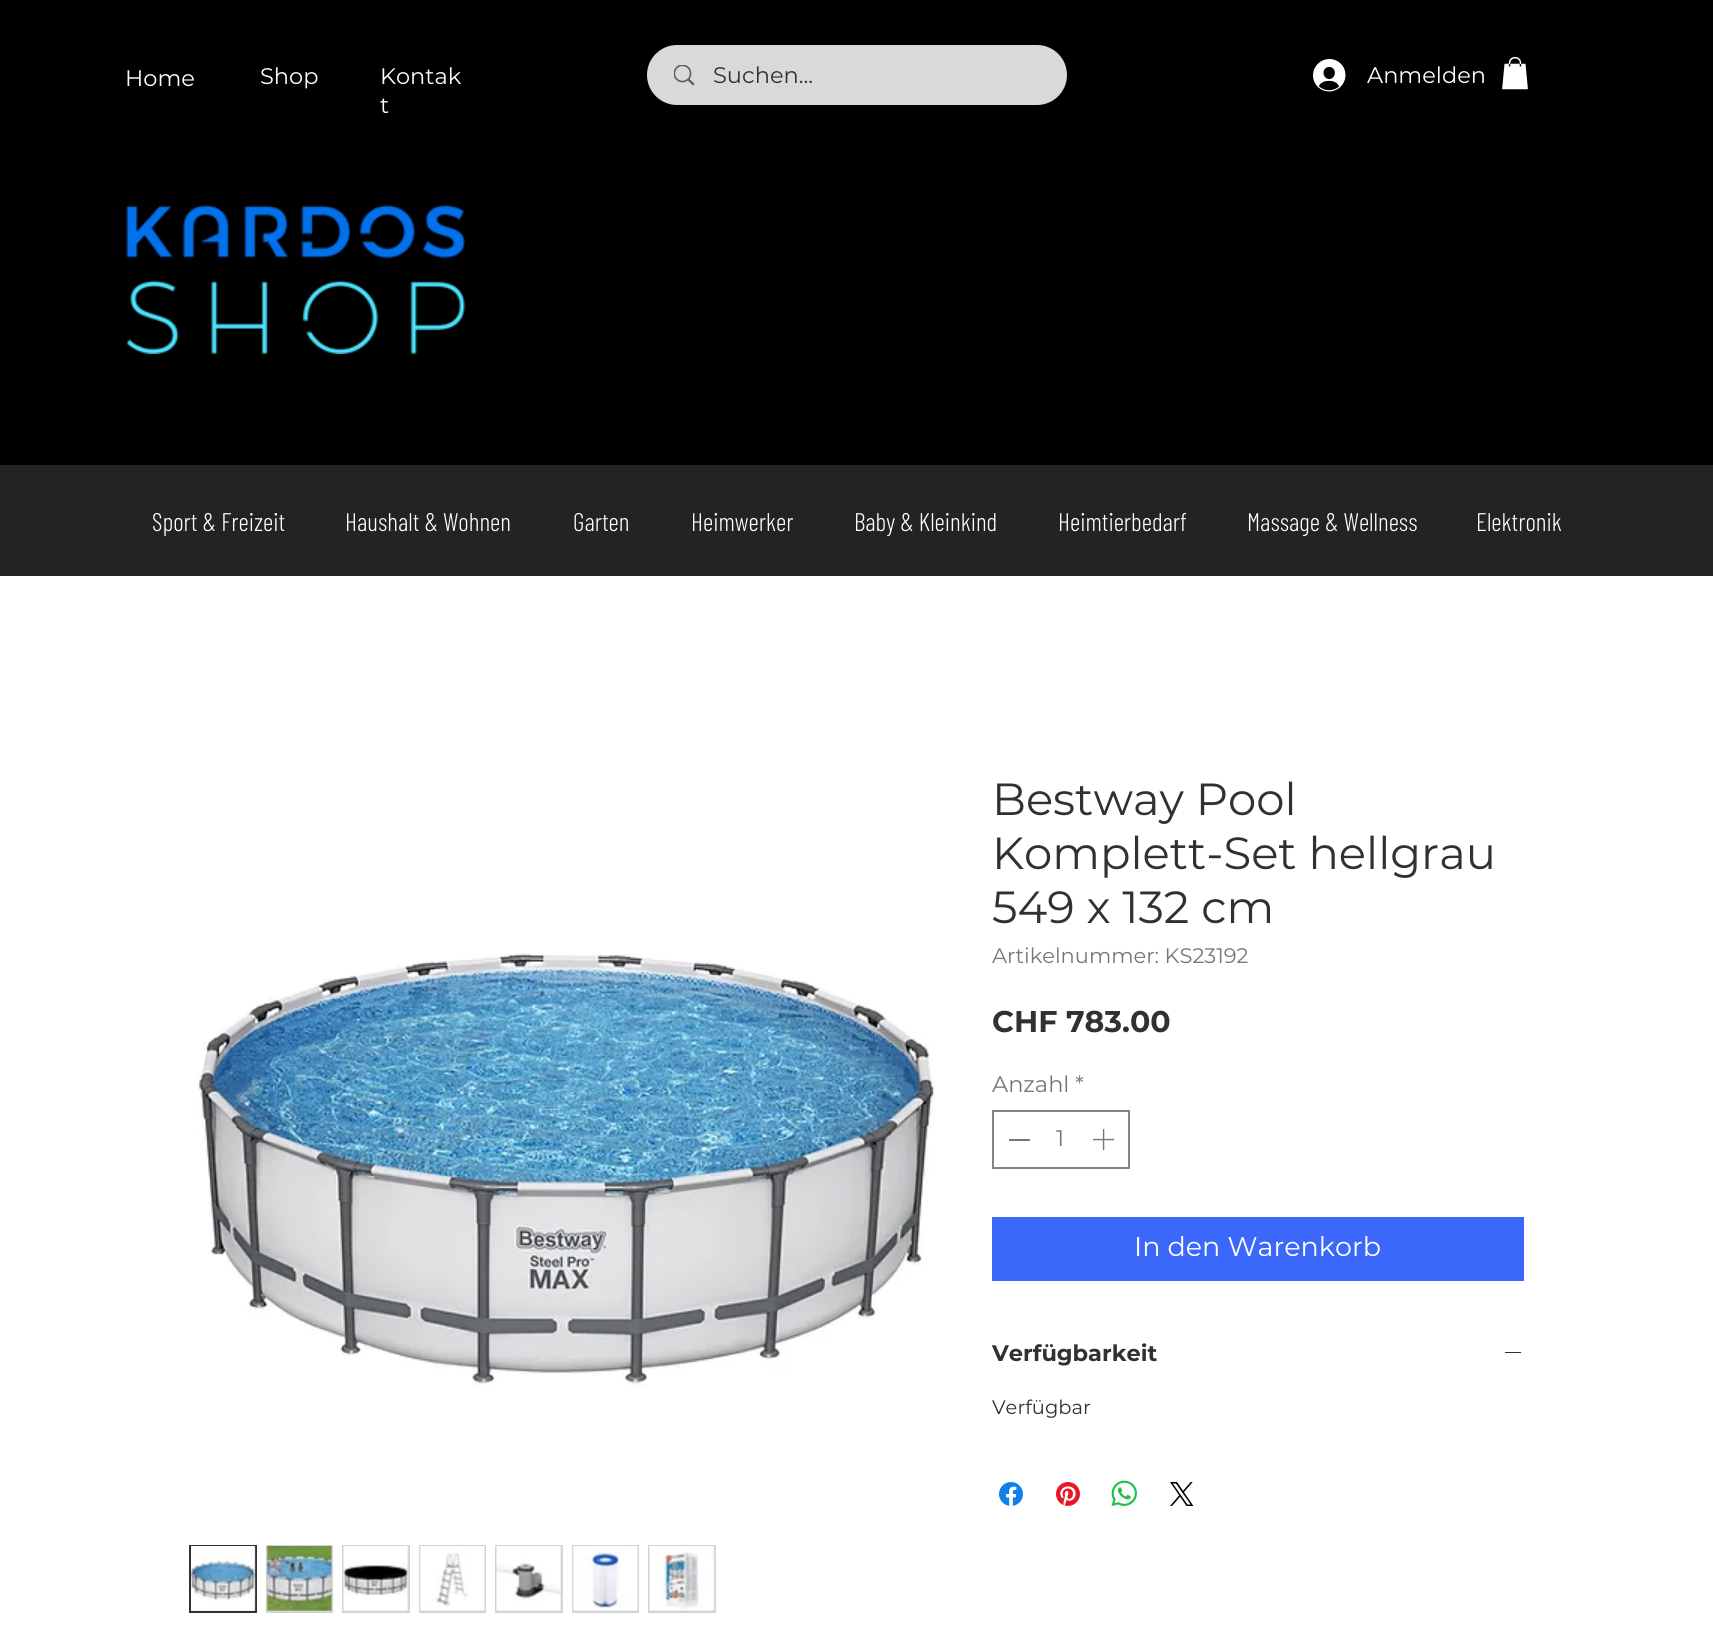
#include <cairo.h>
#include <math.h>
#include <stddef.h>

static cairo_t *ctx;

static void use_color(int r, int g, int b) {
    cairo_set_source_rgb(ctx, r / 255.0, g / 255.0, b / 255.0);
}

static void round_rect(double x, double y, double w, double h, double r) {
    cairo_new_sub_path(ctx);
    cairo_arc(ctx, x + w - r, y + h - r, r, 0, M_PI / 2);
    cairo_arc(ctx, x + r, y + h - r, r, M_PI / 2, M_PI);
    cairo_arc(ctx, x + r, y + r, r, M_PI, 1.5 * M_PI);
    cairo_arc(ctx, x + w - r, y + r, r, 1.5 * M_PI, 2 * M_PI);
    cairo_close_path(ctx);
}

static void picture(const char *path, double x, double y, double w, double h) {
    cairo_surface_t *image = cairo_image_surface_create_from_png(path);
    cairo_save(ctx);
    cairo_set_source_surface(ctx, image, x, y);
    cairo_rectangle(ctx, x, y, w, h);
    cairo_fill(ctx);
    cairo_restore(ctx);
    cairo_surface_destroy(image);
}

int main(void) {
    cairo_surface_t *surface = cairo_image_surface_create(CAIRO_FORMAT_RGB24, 1713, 1641);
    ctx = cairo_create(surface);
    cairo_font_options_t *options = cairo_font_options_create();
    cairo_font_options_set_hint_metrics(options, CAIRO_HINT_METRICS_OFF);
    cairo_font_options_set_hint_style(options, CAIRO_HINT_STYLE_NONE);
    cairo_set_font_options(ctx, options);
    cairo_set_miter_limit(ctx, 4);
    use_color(255, 255, 255);
    cairo_paint(ctx);
    use_color(0, 0, 0);
    cairo_rectangle(ctx, 0, 0, 1713, 465);
    cairo_fill(ctx);
    picture("img1.png", 125, 205, 341, 149);
    cairo_select_font_face(ctx, "Montserrat", CAIRO_FONT_SLANT_NORMAL, CAIRO_FONT_WEIGHT_NORMAL);
    cairo_set_font_size(ctx, 22.5);
    use_color(255, 255, 255);
    cairo_move_to(ctx, 125, 86);
    cairo_show_text(ctx, "Home");
    cairo_move_to(ctx, 260, 84);
    cairo_show_text(ctx, "Shop");
    cairo_move_to(ctx, 380, 84);
    cairo_show_text(ctx, "Kontak");
    cairo_move_to(ctx, 380, 113);
    cairo_show_text(ctx, "t");
    use_color(217, 217, 217);
    round_rect(647, 45, 420, 60, 30);
    cairo_fill(ctx);
    picture("img2.png", 674, 65, 21, 21);
    use_color(48, 49, 50);
    cairo_move_to(ctx, 713, 83);
    cairo_show_text(ctx, "Suchen...");
    picture("img3.png", 1313, 59, 33, 33);
    use_color(255, 255, 255);
    cairo_move_to(ctx, 1367, 83);
    cairo_show_text(ctx, "Anmelden");
    picture("img4.png", 1502, 57, 26, 33);
    use_color(36, 35, 35);
    cairo_rectangle(ctx, 0, 465, 1713, 111);
    cairo_fill(ctx);
    cairo_select_font_face(ctx, "Barlow Condensed Light", CAIRO_FONT_SLANT_NORMAL, CAIRO_FONT_WEIGHT_NORMAL);
    cairo_set_font_size(ctx, 25.5);
    use_color(255, 255, 255);
    cairo_move_to(ctx, 152, 531);
    cairo_show_text(ctx, "Sport & Freizeit");
    cairo_move_to(ctx, 345, 531);
    cairo_show_text(ctx, "Haushalt & Wohnen");
    cairo_move_to(ctx, 573, 531);
    cairo_show_text(ctx, "Garten");
    cairo_move_to(ctx, 691, 531);
    cairo_show_text(ctx, "Heimwerker");
    cairo_move_to(ctx, 854, 531);
    cairo_show_text(ctx, "Baby & Kleinkind");
    cairo_move_to(ctx, 1058, 531);
    cairo_show_text(ctx, "Heimtierbedarf");
    cairo_move_to(ctx, 1247, 531);
    cairo_show_text(ctx, "Massage & Wellness");
    cairo_move_to(ctx, 1476, 531);
    cairo_show_text(ctx, "Elektronik");
    picture("img5.png", 196, 953, 739, 434);
    use_color(211, 211, 211);
    cairo_rectangle(ctx, 190, 1546, 66, 66);
    cairo_fill_preserve(ctx);
    use_color(48, 49, 50);
    cairo_stroke(ctx);
    picture("img6.png", 191, 1546, 65, 65);
    use_color(211, 211, 211);
    cairo_rectangle(ctx, 266, 1545, 67, 68);
    cairo_fill(ctx);
    picture("img7.png", 266, 1546, 66, 65);
    cairo_rectangle(ctx, 342, 1545, 68, 68);
    cairo_fill(ctx);
    picture("img8.png", 343, 1546, 66, 65);
    cairo_rectangle(ctx, 419, 1545, 67, 68);
    cairo_fill(ctx);
    picture("img9.png", 419, 1546, 66, 65);
    cairo_rectangle(ctx, 495, 1545, 68, 68);
    cairo_fill(ctx);
    picture("img10.png", 496, 1546, 66, 65);
    cairo_rectangle(ctx, 572, 1545, 67, 68);
    cairo_fill(ctx);
    picture("img11.png", 572, 1546, 66, 65);
    cairo_rectangle(ctx, 648, 1545, 68, 68);
    cairo_fill(ctx);
    picture("img12.png", 649, 1546, 66, 65);
    cairo_select_font_face(ctx, "Montserrat", CAIRO_FONT_SLANT_NORMAL, CAIRO_FONT_WEIGHT_NORMAL);
    cairo_set_font_size(ctx, 45);
    use_color(48, 49, 50);
    cairo_move_to(ctx, 992, 815);
    cairo_show_text(ctx, "Bestway Pool");
    cairo_move_to(ctx, 992, 869);
    cairo_show_text(ctx, "Komplett-Set hellgrau");
    cairo_move_to(ctx, 992, 923);
    cairo_show_text(ctx, "549 x 132 cm");
    cairo_set_font_size(ctx, 21);
    use_color(119, 119, 119);
    cairo_move_to(ctx, 992, 963);
    cairo_show_text(ctx, "Artikelnummer: KS23192");
    cairo_select_font_face(ctx, "Montserrat", CAIRO_FONT_SLANT_NORMAL, CAIRO_FONT_WEIGHT_BOLD);
    cairo_set_font_size(ctx, 30);
    use_color(48, 49, 50);
    cairo_move_to(ctx, 992, 1032);
    cairo_show_text(ctx, "CHF 783.00");
    cairo_select_font_face(ctx, "Montserrat", CAIRO_FONT_SLANT_NORMAL, CAIRO_FONT_WEIGHT_NORMAL);
    cairo_set_font_size(ctx, 22.5);
    use_color(119, 119, 119);
    cairo_move_to(ctx, 992, 1092);
    cairo_show_text(ctx, "Anzahl *");
    cairo_rectangle(ctx, 993, 1111, 136, 57);
    use_color(131, 131, 132);
    cairo_stroke(ctx);
    use_color(119, 119, 119);
    cairo_rectangle(ctx, 1009, 1139, 21, 2);
    cairo_fill(ctx);
    cairo_move_to(ctx, 1056, 1146);
    cairo_show_text(ctx, "1");
    picture("img13.png", 1093, 1129, 22, 22);
    use_color(59, 104, 250);
    cairo_rectangle(ctx, 992, 1217, 532, 64);
    cairo_fill(ctx);
    cairo_set_font_size(ctx, 27);
    use_color(255, 255, 255);
    cairo_move_to(ctx, 1134, 1256);
    cairo_show_text(ctx, "In den Warenkorb");
    cairo_select_font_face(ctx, "Montserrat", CAIRO_FONT_SLANT_NORMAL, CAIRO_FONT_WEIGHT_BOLD);
    cairo_set_font_size(ctx, 22.5);
    use_color(48, 49, 50);
    cairo_move_to(ctx, 992, 1361);
    cairo_show_text(ctx, "Verfügbarkeit");
    cairo_rectangle(ctx, 1505, 1352, 16, 1);
    cairo_fill(ctx);
    cairo_select_font_face(ctx, "Montserrat", CAIRO_FONT_SLANT_NORMAL, CAIRO_FONT_WEIGHT_NORMAL);
    cairo_set_font_size(ctx, 19.5);
    cairo_move_to(ctx, 992, 1414);
    cairo_show_text(ctx, "Verfügbar");
    picture("img14.png", 999, 1482, 24, 24);
    picture("img15.png", 1056, 1482, 24, 24);
    picture("img16.png", 1111, 1480, 26, 27);
    picture("img17.png", 1170, 1482, 24, 24);
    cairo_surface_write_to_png(surface, "result.png");
    cairo_font_options_destroy(options);
    cairo_destroy(ctx);
    cairo_surface_destroy(surface);
    return 0;
}
